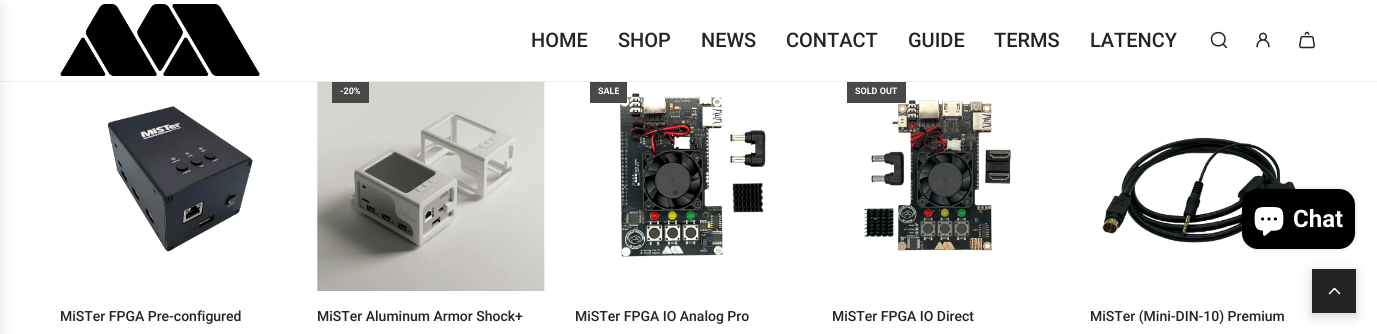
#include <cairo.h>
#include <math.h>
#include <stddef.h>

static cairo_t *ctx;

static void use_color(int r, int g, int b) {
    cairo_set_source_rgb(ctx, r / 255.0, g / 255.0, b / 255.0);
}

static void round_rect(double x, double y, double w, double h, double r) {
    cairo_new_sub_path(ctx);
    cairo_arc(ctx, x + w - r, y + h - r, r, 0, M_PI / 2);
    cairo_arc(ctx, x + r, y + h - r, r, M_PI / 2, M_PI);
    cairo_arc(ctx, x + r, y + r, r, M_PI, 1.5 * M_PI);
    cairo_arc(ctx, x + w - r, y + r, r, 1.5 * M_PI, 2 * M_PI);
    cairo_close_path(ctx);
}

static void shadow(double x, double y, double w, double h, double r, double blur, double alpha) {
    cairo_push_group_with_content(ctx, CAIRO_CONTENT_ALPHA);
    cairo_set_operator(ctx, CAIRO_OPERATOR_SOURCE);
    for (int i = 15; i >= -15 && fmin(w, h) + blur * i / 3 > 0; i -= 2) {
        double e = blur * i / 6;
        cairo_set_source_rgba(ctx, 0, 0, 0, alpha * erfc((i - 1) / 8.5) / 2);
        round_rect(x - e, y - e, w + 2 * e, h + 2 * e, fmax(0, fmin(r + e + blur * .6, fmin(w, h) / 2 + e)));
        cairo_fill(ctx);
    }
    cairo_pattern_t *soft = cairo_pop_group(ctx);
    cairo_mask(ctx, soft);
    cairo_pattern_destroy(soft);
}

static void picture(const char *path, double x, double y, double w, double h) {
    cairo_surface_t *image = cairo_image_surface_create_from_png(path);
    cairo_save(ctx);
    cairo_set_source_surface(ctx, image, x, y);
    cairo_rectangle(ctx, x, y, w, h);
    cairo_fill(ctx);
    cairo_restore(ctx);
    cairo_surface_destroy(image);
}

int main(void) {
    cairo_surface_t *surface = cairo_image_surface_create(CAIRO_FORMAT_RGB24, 1377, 334);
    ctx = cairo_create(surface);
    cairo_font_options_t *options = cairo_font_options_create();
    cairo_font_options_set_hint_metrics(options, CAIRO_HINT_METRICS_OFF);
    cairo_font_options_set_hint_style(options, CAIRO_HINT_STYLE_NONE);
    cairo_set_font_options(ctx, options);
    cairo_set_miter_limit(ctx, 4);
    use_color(255, 255, 255);
    cairo_paint(ctx);
    use_color(238, 238, 238);
    cairo_rectangle(ctx, 0, 81, 1377, 1);
    cairo_fill(ctx);
    use_color(0, 0, 0);
    shadow(-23, 5, 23, 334, 0, 7.5, 0.1);
    picture("img1.png", 60, 4, 200, 72);
    cairo_select_font_face(ctx, "Roboto Medium", CAIRO_FONT_SLANT_NORMAL, CAIRO_FONT_WEIGHT_NORMAL);
    cairo_set_font_size(ctx, 20);
    use_color(36, 36, 36);
    cairo_move_to(ctx, 531, 47);
    cairo_show_text(ctx, "HOME");
    cairo_move_to(ctx, 618, 47);
    cairo_show_text(ctx, "SHOP");
    cairo_move_to(ctx, 701, 47);
    cairo_show_text(ctx, "NEWS");
    cairo_move_to(ctx, 786, 47);
    cairo_show_text(ctx, "CONTACT");
    cairo_move_to(ctx, 908, 47);
    cairo_show_text(ctx, "GUIDE");
    cairo_move_to(ctx, 994, 47);
    cairo_show_text(ctx, "TERMS");
    cairo_move_to(ctx, 1090, 47);
    cairo_show_text(ctx, "LATENCY");
    cairo_new_path(ctx);
    cairo_move_to(ctx, 1223, 44);
    cairo_line_to(ctx, 1226.5, 47.5);
    cairo_move_to(ctx, 1211.5, 39);
    cairo_curve_to(ctx, 1211.5, 48, 1225, 48, 1225, 39);
    cairo_curve_to(ctx, 1225, 30.5, 1211.5, 30.5, 1211.5, 39);
    cairo_close_path(ctx);
    cairo_set_line_width(ctx, 1.5);
    cairo_set_line_cap(ctx, CAIRO_LINE_CAP_ROUND);
    cairo_set_line_join(ctx, CAIRO_LINE_JOIN_ROUND);
    cairo_stroke(ctx);
    picture("img2.png", 1256, 32, 14, 16);
    picture("img3.png", 1299, 31, 16, 18);
    picture("img4.png", 107, 106, 146, 146);
    cairo_set_font_size(ctx, 14);
    cairo_move_to(ctx, 60, 321);
    cairo_show_text(ctx, "MiSTer FPGA Pre-configured");
    picture("img5.png", 317, 82, 228, 209);
    use_color(73, 73, 73);
    cairo_rectangle(ctx, 332, 82, 37, 21);
    cairo_fill(ctx);
    cairo_select_font_face(ctx, "Roboto", CAIRO_FONT_SLANT_NORMAL, CAIRO_FONT_WEIGHT_BOLD);
    cairo_set_font_size(ctx, 9);
    use_color(255, 255, 255);
    cairo_move_to(ctx, 340, 94);
    cairo_show_text(ctx, "-20%");
    cairo_select_font_face(ctx, "Roboto Medium", CAIRO_FONT_SLANT_NORMAL, CAIRO_FONT_WEIGHT_NORMAL);
    cairo_set_font_size(ctx, 14);
    use_color(36, 36, 36);
    cairo_move_to(ctx, 317, 321);
    cairo_show_text(ctx, "MiSTer Aluminum Armor Shock+");
    picture("img6.png", 620, 93, 146, 164);
    use_color(73, 73, 73);
    cairo_rectangle(ctx, 590, 82, 37, 21);
    cairo_fill(ctx);
    cairo_select_font_face(ctx, "Roboto", CAIRO_FONT_SLANT_NORMAL, CAIRO_FONT_WEIGHT_BOLD);
    cairo_set_font_size(ctx, 9);
    use_color(255, 255, 255);
    cairo_move_to(ctx, 598, 94);
    cairo_show_text(ctx, "SALE");
    cairo_select_font_face(ctx, "Roboto Medium", CAIRO_FONT_SLANT_NORMAL, CAIRO_FONT_WEIGHT_NORMAL);
    cairo_set_font_size(ctx, 14);
    use_color(36, 36, 36);
    cairo_move_to(ctx, 575, 321);
    cairo_show_text(ctx, "MiSTer FPGA IO Analog Pro");
    picture("img7.png", 864, 100, 147, 151);
    use_color(73, 73, 73);
    cairo_rectangle(ctx, 847, 82, 59, 21);
    cairo_fill(ctx);
    cairo_select_font_face(ctx, "Roboto", CAIRO_FONT_SLANT_NORMAL, CAIRO_FONT_WEIGHT_BOLD);
    cairo_set_font_size(ctx, 9);
    use_color(255, 255, 255);
    cairo_move_to(ctx, 855, 94);
    cairo_show_text(ctx, "SOLD OUT");
    cairo_select_font_face(ctx, "Roboto Medium", CAIRO_FONT_SLANT_NORMAL, CAIRO_FONT_WEIGHT_NORMAL);
    cairo_set_font_size(ctx, 14);
    use_color(36, 36, 36);
    cairo_move_to(ctx, 832, 321);
    cairo_show_text(ctx, "MiSTer FPGA IO Direct");
    picture("img8.png", 1102, 137, 194, 106);
    cairo_move_to(ctx, 1090, 321);
    cairo_show_text(ctx, "MiSTer (Mini-DIN-10) Premium");
    use_color(0, 0, 0);
    shadow(1242, 189, 113, 60, 16, 2.5, 0.15);
    use_color(0, 0, 0);
    round_rect(1242, 189, 113, 60, 16);
    cairo_fill(ctx);
    picture("img9.png", 1254, 207, 30, 29);
    cairo_select_font_face(ctx, "Roboto", CAIRO_FONT_SLANT_NORMAL, CAIRO_FONT_WEIGHT_BOLD);
    cairo_set_font_size(ctx, 24);
    use_color(255, 255, 255);
    cairo_move_to(ctx, 1293, 227);
    cairo_show_text(ctx, "Chat");
    use_color(0, 0, 0);
    shadow(1312, 272, 44, 44, 0, 6, 0.18);
    use_color(36, 36, 36);
    cairo_rectangle(ctx, 1312, 269, 44, 44);
    cairo_fill(ctx);
    cairo_new_path(ctx);
    cairo_move_to(ctx, 1329.5, 293.5);
    cairo_line_to(ctx, 1334.5, 288.5);
    cairo_line_to(ctx, 1339.5, 293.5);
    use_color(255, 255, 255);
    cairo_stroke(ctx);
    cairo_surface_write_to_png(surface, "result.png");
    cairo_font_options_destroy(options);
    cairo_destroy(ctx);
    cairo_surface_destroy(surface);
    return 0;
}
